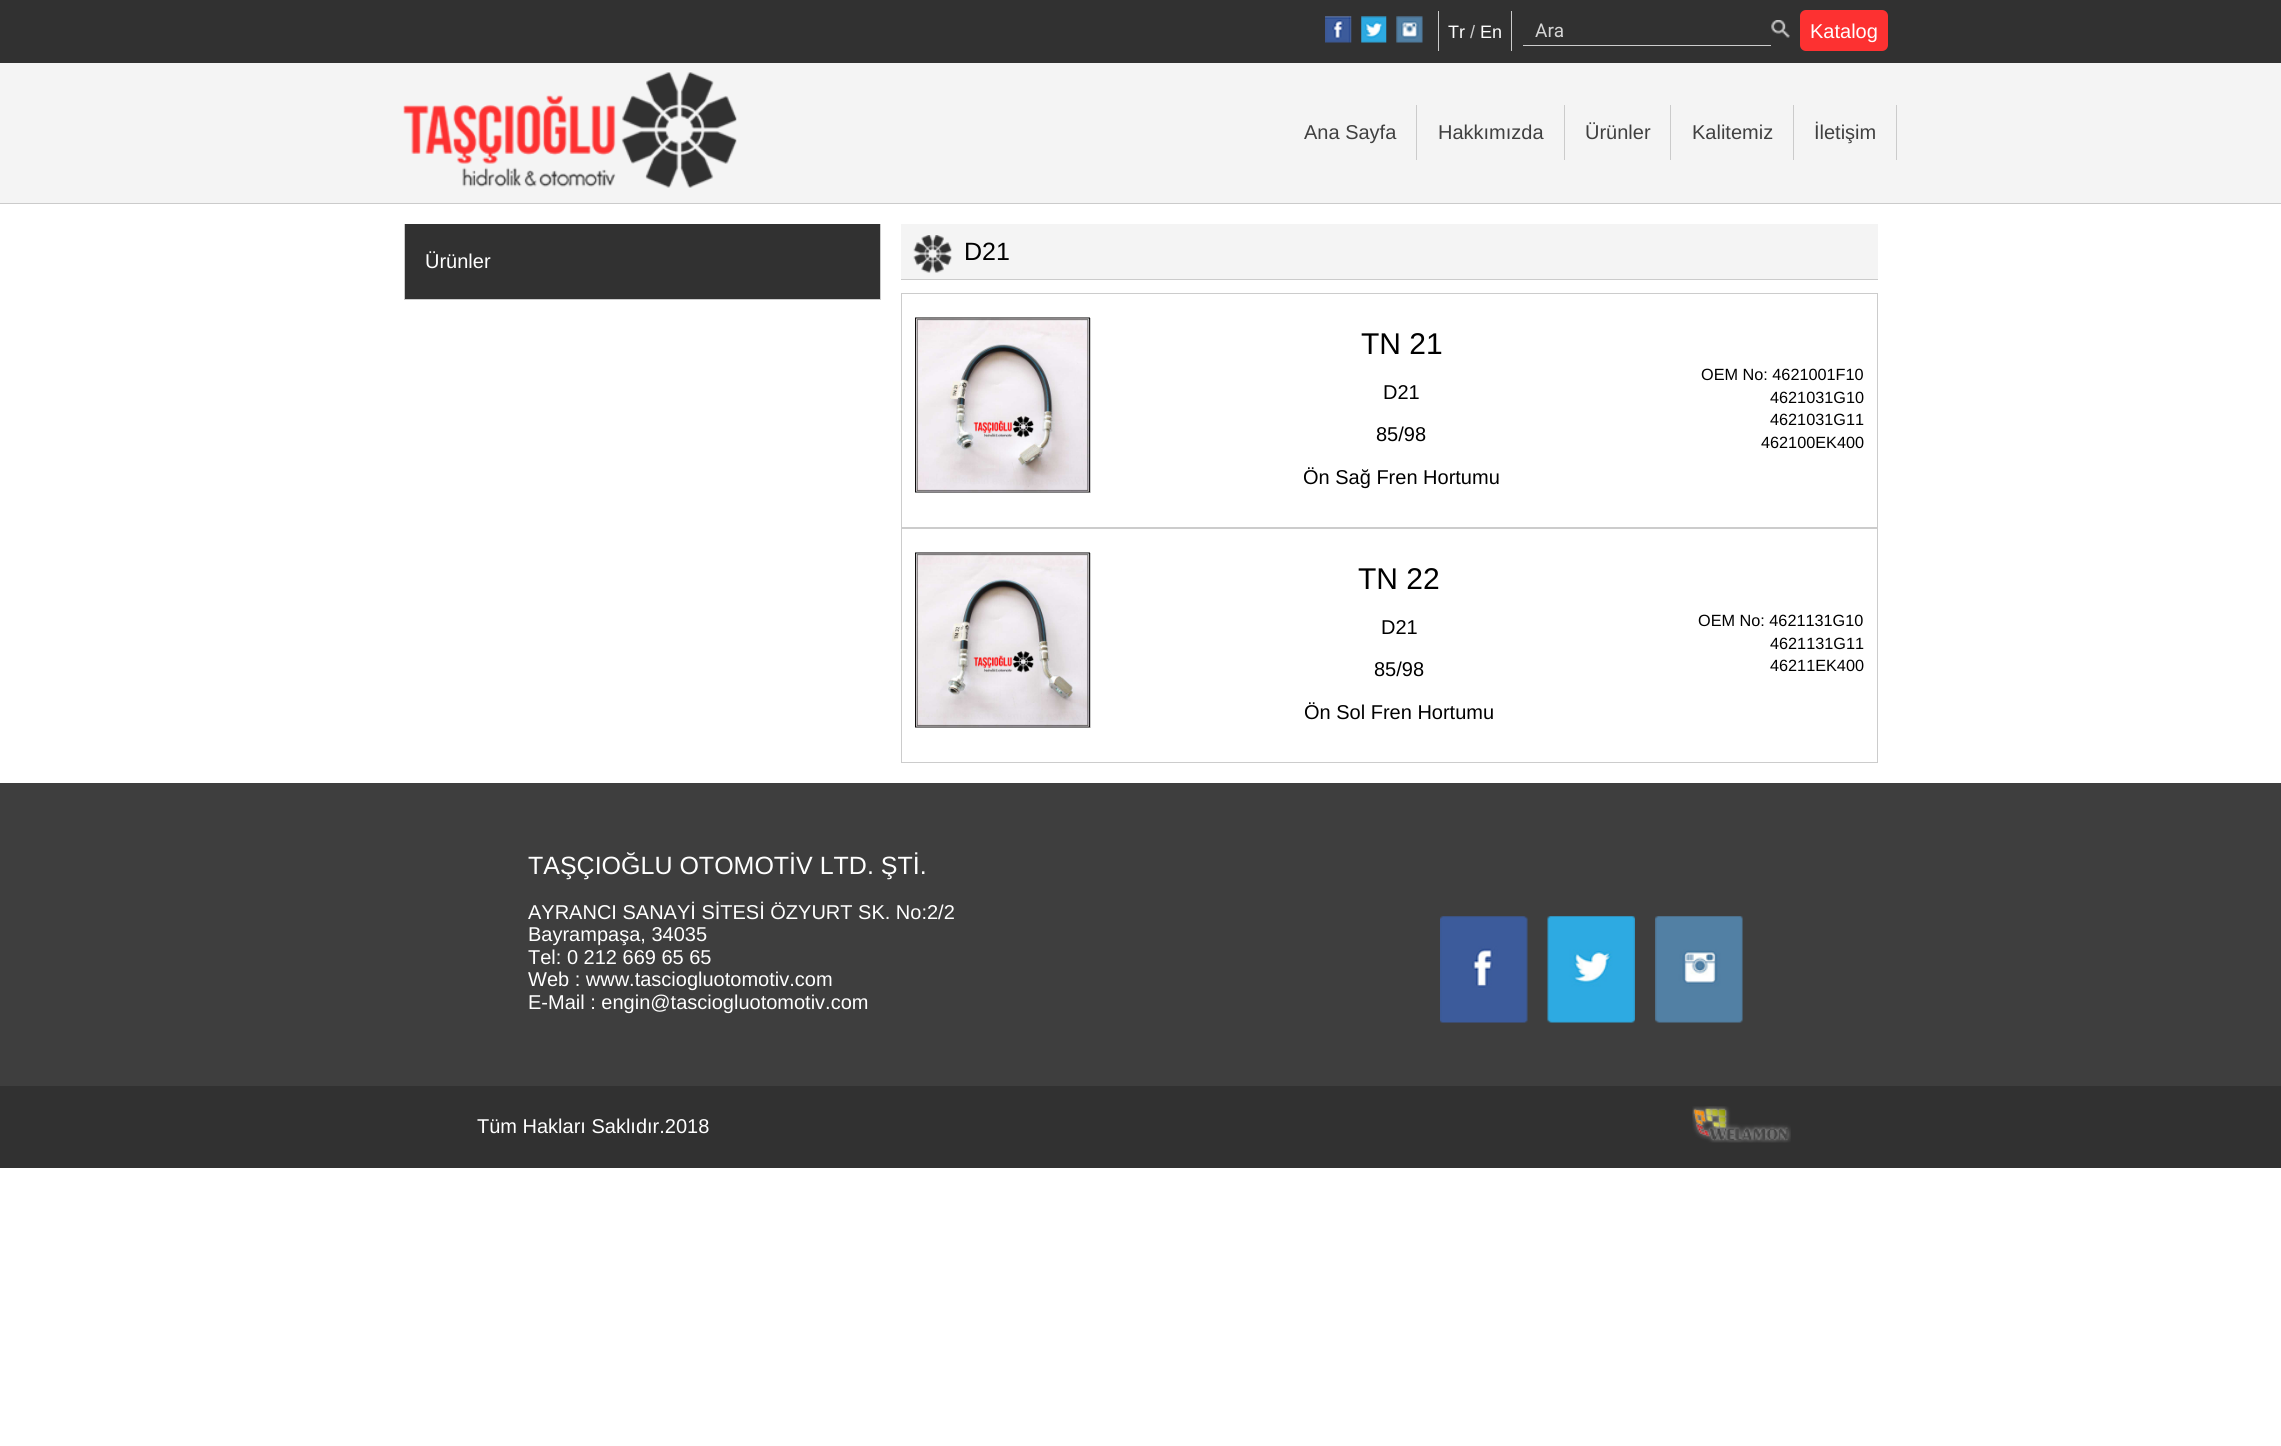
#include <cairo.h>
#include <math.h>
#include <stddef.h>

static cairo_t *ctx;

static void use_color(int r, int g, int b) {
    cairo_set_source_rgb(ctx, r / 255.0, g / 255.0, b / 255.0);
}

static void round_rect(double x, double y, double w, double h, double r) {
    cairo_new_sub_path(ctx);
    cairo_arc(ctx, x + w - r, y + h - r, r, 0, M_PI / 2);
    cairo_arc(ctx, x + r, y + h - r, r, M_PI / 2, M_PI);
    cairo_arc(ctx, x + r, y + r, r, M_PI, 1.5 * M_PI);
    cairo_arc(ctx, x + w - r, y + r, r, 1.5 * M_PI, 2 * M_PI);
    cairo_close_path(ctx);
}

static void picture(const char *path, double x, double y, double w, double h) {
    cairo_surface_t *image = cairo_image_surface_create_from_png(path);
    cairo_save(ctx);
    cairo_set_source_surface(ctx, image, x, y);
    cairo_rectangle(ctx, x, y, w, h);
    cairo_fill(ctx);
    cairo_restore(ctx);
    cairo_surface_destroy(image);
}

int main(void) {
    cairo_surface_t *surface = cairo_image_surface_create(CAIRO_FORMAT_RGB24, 2281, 1446);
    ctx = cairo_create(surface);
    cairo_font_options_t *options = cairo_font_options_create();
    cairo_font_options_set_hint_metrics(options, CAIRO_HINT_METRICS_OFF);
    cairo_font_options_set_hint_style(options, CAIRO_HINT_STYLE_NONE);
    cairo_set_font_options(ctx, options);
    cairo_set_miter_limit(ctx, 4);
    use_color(255, 255, 255);
    cairo_paint(ctx);
    use_color(49, 49, 49);
    cairo_rectangle(ctx, 0, 0, 2281, 63);
    cairo_fill(ctx);
    picture("img1.png", 1325, 16, 27, 27);
    picture("img2.png", 1361, 16, 26, 27);
    picture("img3.png", 1396, 16, 27, 27);
    use_color(203, 203, 203);
    cairo_rectangle(ctx, 1511, 11, 1, 40);
    cairo_fill(ctx);
    cairo_rectangle(ctx, 1438, 11, 1, 40);
    cairo_fill(ctx);
    cairo_select_font_face(ctx, "Liberation Sans", CAIRO_FONT_SLANT_NORMAL, CAIRO_FONT_WEIGHT_NORMAL);
    cairo_set_font_size(ctx, 18);
    use_color(255, 255, 255);
    cairo_move_to(ctx, 1448, 38);
    cairo_show_text(ctx, "Tr");
    use_color(203, 203, 203);
    cairo_move_to(ctx, 1470, 38);
    cairo_show_text(ctx, "/");
    use_color(255, 255, 255);
    cairo_move_to(ctx, 1480, 38);
    cairo_show_text(ctx, "En");
    use_color(204, 204, 204);
    cairo_rectangle(ctx, 1523, 45, 248, 1);
    cairo_fill(ctx);
    cairo_select_font_face(ctx, "Roboto", CAIRO_FONT_SLANT_NORMAL, CAIRO_FONT_WEIGHT_NORMAL);
    cairo_set_font_size(ctx, 19);
    use_color(213, 213, 213);
    cairo_move_to(ctx, 1535, 37);
    cairo_show_text(ctx, "Ara");
    picture("img4.png", 1771, 20, 19, 18);
    use_color(253, 49, 49);
    round_rect(1800, 10, 88, 41, 6);
    cairo_fill(ctx);
    cairo_select_font_face(ctx, "Liberation Sans", CAIRO_FONT_SLANT_NORMAL, CAIRO_FONT_WEIGHT_NORMAL);
    cairo_set_font_size(ctx, 20);
    use_color(255, 255, 255);
    cairo_move_to(ctx, 1810, 38);
    cairo_show_text(ctx, "Katalog");
    use_color(244, 244, 244);
    cairo_rectangle(ctx, 0, 63, 2281, 140);
    cairo_fill(ctx);
    use_color(203, 203, 203);
    cairo_rectangle(ctx, 0, 203, 2281, 1);
    cairo_fill(ctx);
    picture("img5.png", 403, 72, 334, 116);
    cairo_rectangle(ctx, 1416, 105, 1, 55);
    cairo_fill(ctx);
    use_color(64, 64, 64);
    cairo_move_to(ctx, 1304, 139);
    cairo_show_text(ctx, "Ana Sayfa");
    use_color(203, 203, 203);
    cairo_rectangle(ctx, 1564, 105, 1, 55);
    cairo_fill(ctx);
    use_color(64, 64, 64);
    cairo_move_to(ctx, 1438, 139);
    cairo_show_text(ctx, "Hakkımızda");
    use_color(203, 203, 203);
    cairo_rectangle(ctx, 1670, 105, 1, 55);
    cairo_fill(ctx);
    use_color(64, 64, 64);
    cairo_move_to(ctx, 1585, 139);
    cairo_show_text(ctx, "Ürünler");
    use_color(203, 203, 203);
    cairo_rectangle(ctx, 1793, 105, 1, 55);
    cairo_fill(ctx);
    use_color(64, 64, 64);
    cairo_move_to(ctx, 1692, 139);
    cairo_show_text(ctx, "Kalitemiz");
    use_color(203, 203, 203);
    cairo_rectangle(ctx, 1896, 105, 1, 55);
    cairo_fill(ctx);
    use_color(64, 64, 64);
    cairo_move_to(ctx, 1814, 139);
    cairo_show_text(ctx, "İletişim");
    use_color(49, 49, 49);
    cairo_rectangle(ctx, 405, 224, 475, 75);
    cairo_fill(ctx);
    use_color(203, 203, 203);
    cairo_rectangle(ctx, 880, 224, 1, 76);
    cairo_fill(ctx);
    cairo_rectangle(ctx, 404, 299, 477, 1);
    cairo_fill(ctx);
    cairo_rectangle(ctx, 404, 224, 1, 76);
    cairo_fill(ctx);
    use_color(255, 255, 255);
    cairo_move_to(ctx, 425, 268);
    cairo_show_text(ctx, "Ürünler");
    use_color(244, 244, 244);
    cairo_rectangle(ctx, 901, 224, 977, 55);
    cairo_fill(ctx);
    use_color(203, 203, 203);
    cairo_rectangle(ctx, 901, 279, 977, 1);
    cairo_fill(ctx);
    picture("img6.png", 913, 235, 39, 38);
    cairo_set_font_size(ctx, 25);
    use_color(0, 0, 0);
    cairo_move_to(ctx, 964, 260);
    cairo_show_text(ctx, "D21");
    cairo_rectangle(ctx, 901.5, 293.5, 976, 234);
    use_color(204, 204, 204);
    cairo_set_line_width(ctx, 1);
    cairo_stroke(ctx);
    picture("img7.png", 915, 317, 175, 176);
    use_color(203, 203, 203);
    cairo_rectangle(ctx, 1090, 318, 1, 175);
    cairo_fill(ctx);
    cairo_set_font_size(ctx, 30);
    use_color(0, 0, 0);
    cairo_move_to(ctx, 1361, 354);
    cairo_show_text(ctx, "TN 21");
    cairo_set_font_size(ctx, 20);
    cairo_move_to(ctx, 1383, 399);
    cairo_show_text(ctx, "D21");
    cairo_move_to(ctx, 1376, 441);
    cairo_show_text(ctx, "85/98");
    cairo_move_to(ctx, 1303, 484);
    cairo_show_text(ctx, "Ön Sağ Fren Hortumu");
    cairo_set_font_size(ctx, 16.25);
    cairo_move_to(ctx, 1701, 380);
    cairo_show_text(ctx, "OEM No: 4621001F10");
    cairo_move_to(ctx, 1770, 403);
    cairo_show_text(ctx, "4621031G10");
    cairo_move_to(ctx, 1770, 425);
    cairo_show_text(ctx, "4621031G11");
    cairo_move_to(ctx, 1761, 448);
    cairo_show_text(ctx, "462100EK400");
    cairo_rectangle(ctx, 901.5, 528.5, 976, 234);
    use_color(204, 204, 204);
    cairo_stroke(ctx);
    picture("img8.png", 915, 552, 175, 176);
    use_color(203, 203, 203);
    cairo_rectangle(ctx, 1090, 553, 1, 175);
    cairo_fill(ctx);
    cairo_set_font_size(ctx, 30);
    use_color(0, 0, 0);
    cairo_move_to(ctx, 1358, 589);
    cairo_show_text(ctx, "TN 22");
    cairo_set_font_size(ctx, 20);
    cairo_move_to(ctx, 1381, 634);
    cairo_show_text(ctx, "D21");
    cairo_move_to(ctx, 1374, 676);
    cairo_show_text(ctx, "85/98");
    cairo_move_to(ctx, 1304, 719);
    cairo_show_text(ctx, "Ön Sol Fren Hortumu");
    cairo_set_font_size(ctx, 16.25);
    cairo_move_to(ctx, 1698, 626);
    cairo_show_text(ctx, "OEM No: 4621131G10");
    cairo_move_to(ctx, 1770, 649);
    cairo_show_text(ctx, "4621131G11");
    cairo_move_to(ctx, 1770, 671);
    cairo_show_text(ctx, "46211EK400");
    use_color(62, 62, 62);
    cairo_rectangle(ctx, 0, 783, 2281, 303);
    cairo_fill(ctx);
    cairo_set_font_size(ctx, 25);
    use_color(255, 255, 255);
    cairo_move_to(ctx, 528, 874);
    cairo_show_text(ctx, "TAŞÇIOĞLU OTOMOTİV LTD. ŞTİ.");
    cairo_set_font_size(ctx, 20);
    cairo_move_to(ctx, 528, 919);
    cairo_show_text(ctx, "AYRANCI SANAYİ SİTESİ ÖZYURT SK. No:2/2");
    cairo_move_to(ctx, 528, 941);
    cairo_show_text(ctx, "Bayrampaşa, 34035");
    cairo_move_to(ctx, 528, 964);
    cairo_show_text(ctx, "Tel: 0 212 669 65 65");
    cairo_move_to(ctx, 528, 986);
    cairo_show_text(ctx, "Web : www.tasciogluotomotiv.com");
    cairo_move_to(ctx, 528, 1009);
    cairo_show_text(ctx, "E-Mail : engin@tasciogluotomotiv.com");
    picture("img9.png", 1440, 916, 88, 107);
    picture("img10.png", 1547, 916, 88, 107);
    picture("img11.png", 1655, 916, 88, 107);
    use_color(49, 49, 49);
    cairo_rectangle(ctx, 0, 1086, 2281, 82);
    cairo_fill(ctx);
    use_color(255, 255, 255);
    cairo_move_to(ctx, 477, 1133);
    cairo_show_text(ctx, "Tüm Hakları Saklıdır.2018");
    picture("img12.png", 1692, 1106, 99, 37);
    cairo_surface_write_to_png(surface, "result.png");
    cairo_font_options_destroy(options);
    cairo_destroy(ctx);
    cairo_surface_destroy(surface);
    return 0;
}
